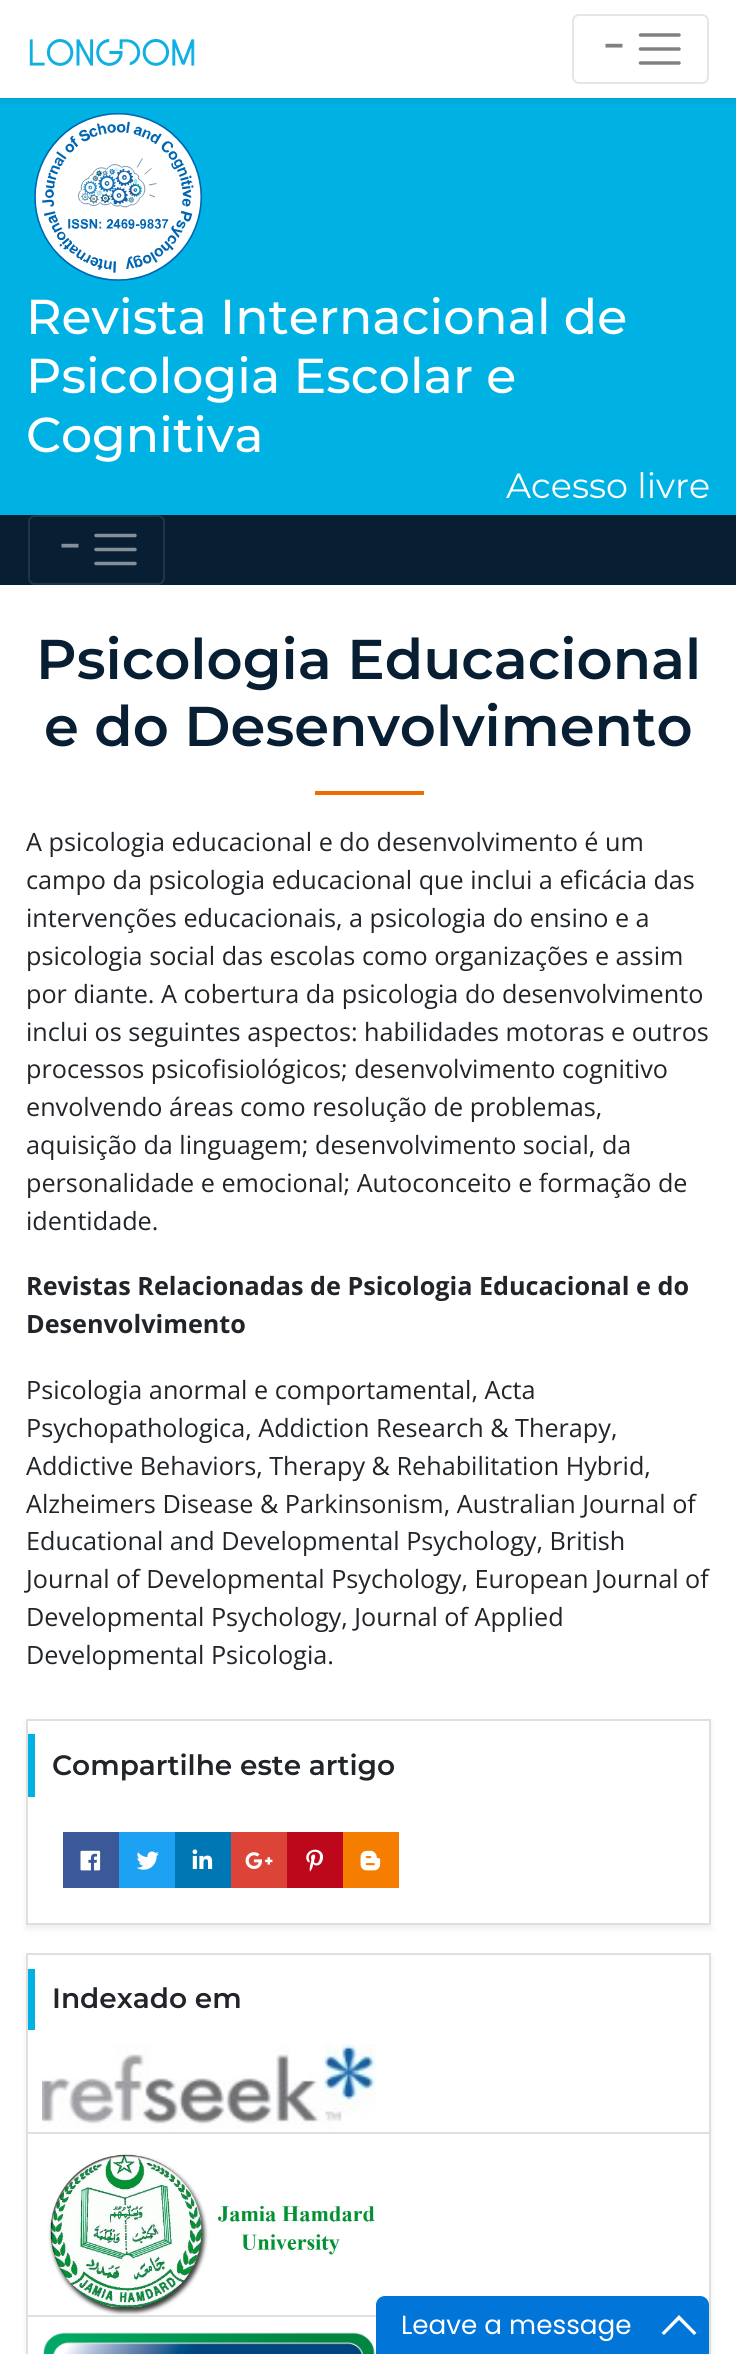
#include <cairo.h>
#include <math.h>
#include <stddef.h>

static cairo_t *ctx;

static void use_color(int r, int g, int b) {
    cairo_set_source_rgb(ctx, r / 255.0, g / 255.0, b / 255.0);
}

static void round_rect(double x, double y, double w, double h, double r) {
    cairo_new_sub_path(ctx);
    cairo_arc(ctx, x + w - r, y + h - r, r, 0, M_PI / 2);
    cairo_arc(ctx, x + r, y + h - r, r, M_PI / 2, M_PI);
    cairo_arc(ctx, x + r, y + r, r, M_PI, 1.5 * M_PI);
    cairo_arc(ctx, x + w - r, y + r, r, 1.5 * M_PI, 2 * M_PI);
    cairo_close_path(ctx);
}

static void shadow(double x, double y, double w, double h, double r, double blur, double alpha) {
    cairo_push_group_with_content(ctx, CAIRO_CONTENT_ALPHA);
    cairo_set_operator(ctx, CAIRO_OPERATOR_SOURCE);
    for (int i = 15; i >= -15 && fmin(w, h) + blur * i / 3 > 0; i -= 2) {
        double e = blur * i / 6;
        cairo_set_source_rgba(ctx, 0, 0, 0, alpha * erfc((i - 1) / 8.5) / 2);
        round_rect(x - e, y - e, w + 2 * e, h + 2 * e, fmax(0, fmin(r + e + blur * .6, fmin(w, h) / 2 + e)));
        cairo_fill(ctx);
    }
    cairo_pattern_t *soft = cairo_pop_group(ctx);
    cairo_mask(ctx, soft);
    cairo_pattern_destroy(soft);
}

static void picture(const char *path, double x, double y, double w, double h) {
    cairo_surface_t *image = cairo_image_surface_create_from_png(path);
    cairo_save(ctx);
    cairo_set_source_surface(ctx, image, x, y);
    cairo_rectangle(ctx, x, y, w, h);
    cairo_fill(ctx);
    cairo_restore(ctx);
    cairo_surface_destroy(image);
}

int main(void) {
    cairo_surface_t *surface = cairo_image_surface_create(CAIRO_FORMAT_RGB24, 736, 2354);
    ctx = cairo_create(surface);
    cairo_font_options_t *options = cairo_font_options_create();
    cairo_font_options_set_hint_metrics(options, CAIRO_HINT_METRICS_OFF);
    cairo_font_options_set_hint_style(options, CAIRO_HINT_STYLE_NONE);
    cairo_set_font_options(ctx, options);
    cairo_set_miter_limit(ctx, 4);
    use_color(255, 255, 255);
    cairo_paint(ctx);
    use_color(0, 177, 228);
    cairo_rectangle(ctx, 0, 98, 736, 417);
    cairo_fill(ctx);
    cairo_save(ctx);
    cairo_rectangle(ctx, 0, 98, 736, 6);
    cairo_clip(ctx);
    use_color(0, 0, 0);
    shadow(0, 4, 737, 98, 0, 3.5, 0.07);
    cairo_restore(ctx);
    picture("img1.png", 29, 39, 166, 27);
    round_rect(573, 15, 135, 68, 6);
    use_color(230, 230, 230);
    cairo_stroke(ctx);
    cairo_select_font_face(ctx, "Open Sans", CAIRO_FONT_SLANT_NORMAL, CAIRO_FONT_WEIGHT_BOLD);
    cairo_set_font_size(ctx, 35);
    use_color(128, 128, 128);
    cairo_move_to(ctx, 604, 58);
    cairo_show_text(ctx, "−");
    cairo_new_path(ctx);
    cairo_move_to(ctx, 640.5, 35);
    cairo_line_to(ctx, 679, 35);
    cairo_move_to(ctx, 640.5, 49);
    cairo_line_to(ctx, 679, 49);
    cairo_move_to(ctx, 640.5, 63);
    cairo_line_to(ctx, 679, 63);
    cairo_set_line_width(ctx, 3.5);
    cairo_set_line_cap(ctx, CAIRO_LINE_CAP_ROUND);
    cairo_stroke(ctx);
    picture("img2.png", 34, 113, 168, 168);
    cairo_select_font_face(ctx, "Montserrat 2 Thin", CAIRO_FONT_SLANT_NORMAL, CAIRO_FONT_WEIGHT_NORMAL);
    cairo_set_font_size(ctx, 49);
    use_color(255, 255, 255);
    cairo_move_to(ctx, 26, 334);
    cairo_show_text(ctx, "Revista Internacional de");
    cairo_move_to(ctx, 26, 393);
    cairo_show_text(ctx, "Psicologia Escolar e");
    cairo_move_to(ctx, 26, 452);
    cairo_show_text(ctx, "Cognitiva");
    cairo_select_font_face(ctx, "Montserrat Thin", CAIRO_FONT_SLANT_NORMAL, CAIRO_FONT_WEIGHT_NORMAL);
    cairo_set_font_size(ctx, 35);
    cairo_move_to(ctx, 506, 498);
    cairo_show_text(ctx, "Acesso livre");
    use_color(7, 30, 51);
    cairo_rectangle(ctx, 0, 515, 736, 70);
    cairo_fill(ctx);
    round_rect(29, 516, 135, 68, 6);
    use_color(32, 53, 71);
    cairo_set_line_width(ctx, 2);
    cairo_set_line_cap(ctx, CAIRO_LINE_CAP_BUTT);
    cairo_stroke(ctx);
    cairo_select_font_face(ctx, "Open Sans", CAIRO_FONT_SLANT_NORMAL, CAIRO_FONT_WEIGHT_BOLD);
    use_color(131, 143, 153);
    cairo_move_to(ctx, 60, 558);
    cairo_show_text(ctx, "−");
    cairo_new_path(ctx);
    cairo_move_to(ctx, 96, 535.5);
    cairo_line_to(ctx, 135, 535.5);
    cairo_move_to(ctx, 96, 549.5);
    cairo_line_to(ctx, 135, 549.5);
    cairo_move_to(ctx, 96, 563.5);
    cairo_line_to(ctx, 135, 563.5);
    cairo_set_line_width(ctx, 3.5);
    cairo_set_line_cap(ctx, CAIRO_LINE_CAP_ROUND);
    cairo_stroke(ctx);
    cairo_select_font_face(ctx, "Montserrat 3 Thin", CAIRO_FONT_SLANT_NORMAL, CAIRO_FONT_WEIGHT_NORMAL);
    cairo_set_font_size(ctx, 56);
    use_color(7, 30, 51);
    cairo_move_to(ctx, 36, 679);
    cairo_show_text(ctx, "Psicologia Educacional");
    cairo_move_to(ctx, 44, 746);
    cairo_show_text(ctx, "e do Desenvolvimento");
    use_color(239, 108, 0);
    cairo_rectangle(ctx, 315, 791, 109, 4);
    cairo_fill(ctx);
    cairo_select_font_face(ctx, "Open Sans", CAIRO_FONT_SLANT_NORMAL, CAIRO_FONT_WEIGHT_NORMAL);
    cairo_set_font_size(ctx, 25.2);
    use_color(33, 37, 41);
    cairo_move_to(ctx, 26, 851);
    cairo_show_text(ctx, "A psicologia educacional e do desenvolvimento é um");
    cairo_move_to(ctx, 26, 889);
    cairo_show_text(ctx, "campo da psicologia educacional que inclui a eficácia das");
    cairo_move_to(ctx, 26, 927);
    cairo_show_text(ctx, "intervenções educacionais, a psicologia do ensino e a");
    cairo_move_to(ctx, 26, 965);
    cairo_show_text(ctx, "psicologia social das escolas como organizações e assim");
    cairo_move_to(ctx, 26, 1003);
    cairo_show_text(ctx, "por diante. A cobertura da psicologia do desenvolvimento");
    cairo_move_to(ctx, 26, 1041);
    cairo_show_text(ctx, "inclui os seguintes aspectos: habilidades motoras e outros");
    cairo_move_to(ctx, 26, 1078);
    cairo_show_text(ctx, "processos psicofisiológicos; desenvolvimento cognitivo");
    cairo_move_to(ctx, 26, 1116);
    cairo_show_text(ctx, "envolvendo áreas como resolução de problemas,");
    cairo_move_to(ctx, 26, 1154);
    cairo_show_text(ctx, "aquisição da linguagem; desenvolvimento social, da");
    cairo_move_to(ctx, 26, 1192);
    cairo_show_text(ctx, "personalidade e emocional; Autoconceito e formação de");
    cairo_move_to(ctx, 26, 1230);
    cairo_show_text(ctx, "identidade.");
    cairo_select_font_face(ctx, "Open Sans", CAIRO_FONT_SLANT_NORMAL, CAIRO_FONT_WEIGHT_BOLD);
    cairo_move_to(ctx, 26, 1295);
    cairo_show_text(ctx, "Revistas Relacionadas de Psicologia Educacional e do");
    cairo_move_to(ctx, 26, 1333);
    cairo_show_text(ctx, "Desenvolvimento");
    cairo_select_font_face(ctx, "Open Sans", CAIRO_FONT_SLANT_NORMAL, CAIRO_FONT_WEIGHT_NORMAL);
    cairo_move_to(ctx, 26, 1399);
    cairo_show_text(ctx, "Psicologia anormal e comportamental, Acta");
    cairo_move_to(ctx, 26, 1437);
    cairo_show_text(ctx, "Psychopathologica, Addiction Research & Therapy,");
    cairo_move_to(ctx, 26, 1475);
    cairo_show_text(ctx, "Addictive Behaviors, Therapy & Rehabilitation Hybrid,");
    cairo_move_to(ctx, 26, 1513);
    cairo_show_text(ctx, "Alzheimers Disease & Parkinsonism, Australian Journal of");
    cairo_move_to(ctx, 26, 1550);
    cairo_show_text(ctx, "Educational and Developmental Psychology, British");
    cairo_move_to(ctx, 26, 1588);
    cairo_show_text(ctx, "Journal of Developmental Psychology, European Journal of");
    cairo_move_to(ctx, 26, 1626);
    cairo_show_text(ctx, "Developmental Psychology, Journal of Applied");
    cairo_move_to(ctx, 26, 1664);
    cairo_show_text(ctx, "Developmental Psicologia.");
    use_color(0, 0, 0);
    shadow(26, 1722, 685, 207, 0, 3.5, 0.07);
    use_color(255, 255, 255);
    cairo_rectangle(ctx, 27, 1720, 683, 204);
    cairo_fill_preserve(ctx);
    use_color(223, 223, 223);
    cairo_set_line_width(ctx, 2);
    cairo_set_line_cap(ctx, CAIRO_LINE_CAP_BUTT);
    cairo_stroke(ctx);
    use_color(0, 177, 228);
    cairo_rectangle(ctx, 28, 1734, 7, 63);
    cairo_fill(ctx);
    cairo_select_font_face(ctx, "Montserrat 3 Thin", CAIRO_FONT_SLANT_NORMAL, CAIRO_FONT_WEIGHT_NORMAL);
    cairo_set_font_size(ctx, 28);
    use_color(33, 37, 41);
    cairo_move_to(ctx, 52, 1775);
    cairo_show_text(ctx, "Compartilhe este artigo");
    use_color(59, 89, 152);
    cairo_rectangle(ctx, 63, 1832, 56, 56);
    cairo_fill(ctx);
    picture("img3.png", 80, 1850, 21, 21);
    use_color(29, 161, 242);
    cairo_rectangle(ctx, 119, 1832, 56, 56);
    cairo_fill(ctx);
    picture("img4.png", 136, 1851, 23, 19);
    use_color(0, 119, 181);
    cairo_rectangle(ctx, 175, 1832, 56, 56);
    cairo_fill(ctx);
    picture("img5.png", 192, 1849, 21, 20);
    use_color(219, 68, 55);
    cairo_rectangle(ctx, 231, 1832, 56, 56);
    cairo_fill(ctx);
    picture("img6.png", 245, 1852, 28, 17);
    use_color(189, 8, 28);
    cairo_rectangle(ctx, 287, 1832, 56, 56);
    cairo_fill(ctx);
    picture("img7.png", 306, 1849, 17, 23);
    use_color(245, 125, 0);
    cairo_rectangle(ctx, 343, 1832, 56, 56);
    cairo_fill(ctx);
    picture("img8.png", 360, 1850, 21, 21);
    use_color(0, 0, 0);
    shadow(26, 1957, 685, 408, 0, 3.5, 0.07);
    use_color(255, 255, 255);
    cairo_rectangle(ctx, 28, 1955, 681, 177);
    cairo_fill(ctx);
    cairo_rectangle(ctx, 27, 1954, 683, 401);
    use_color(223, 223, 223);
    cairo_stroke(ctx);
    use_color(0, 177, 228);
    cairo_rectangle(ctx, 28, 1969, 7, 61);
    cairo_fill(ctx);
    use_color(33, 37, 41);
    cairo_move_to(ctx, 52, 2008);
    cairo_show_text(ctx, "Indexado em");
    picture("img9.png", 42, 2044, 334, 85);
    use_color(255, 255, 255);
    cairo_rectangle(ctx, 28, 2134, 681, 181);
    cairo_fill(ctx);
    use_color(223, 223, 223);
    cairo_rectangle(ctx, 28, 2132, 681, 2);
    cairo_fill(ctx);
    picture("img10.png", 42, 2154, 334, 161);
    use_color(255, 255, 255);
    cairo_rectangle(ctx, 28, 2317, 348, 37);
    cairo_fill(ctx);
    use_color(223, 223, 223);
    cairo_rectangle(ctx, 28, 2315, 348, 2);
    cairo_fill(ctx);
    picture("img11.png", 43, 2331, 332, 23);
    use_color(2, 117, 216);
    cairo_new_path(ctx);
    cairo_move_to(ctx, 385, 2296);
    cairo_line_to(ctx, 700, 2296);
    cairo_curve_to(ctx, 705, 2296, 709, 2300, 709, 2305);
    cairo_line_to(ctx, 709, 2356);
    cairo_line_to(ctx, 376, 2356);
    cairo_line_to(ctx, 376, 2305);
    cairo_curve_to(ctx, 376, 2300, 380, 2296, 385, 2296);
    cairo_close_path(ctx);
    cairo_fill(ctx);
    cairo_select_font_face(ctx, "Poppins", CAIRO_FONT_SLANT_NORMAL, CAIRO_FONT_WEIGHT_NORMAL);
    cairo_set_font_size(ctx, 26.25);
    use_color(255, 255, 255);
    cairo_move_to(ctx, 401, 2334);
    cairo_show_text(ctx, "Leave a message");
    cairo_new_path(ctx);
    cairo_move_to(ctx, 679, 2315);
    cairo_line_to(ctx, 696.5, 2333);
    cairo_line_to(ctx, 694, 2335);
    cairo_line_to(ctx, 679, 2320);
    cairo_line_to(ctx, 664, 2335);
    cairo_line_to(ctx, 661.5, 2333);
    cairo_close_path(ctx);
    cairo_fill(ctx);
    cairo_surface_write_to_png(surface, "result.png");
    cairo_font_options_destroy(options);
    cairo_destroy(ctx);
    cairo_surface_destroy(surface);
    return 0;
}
